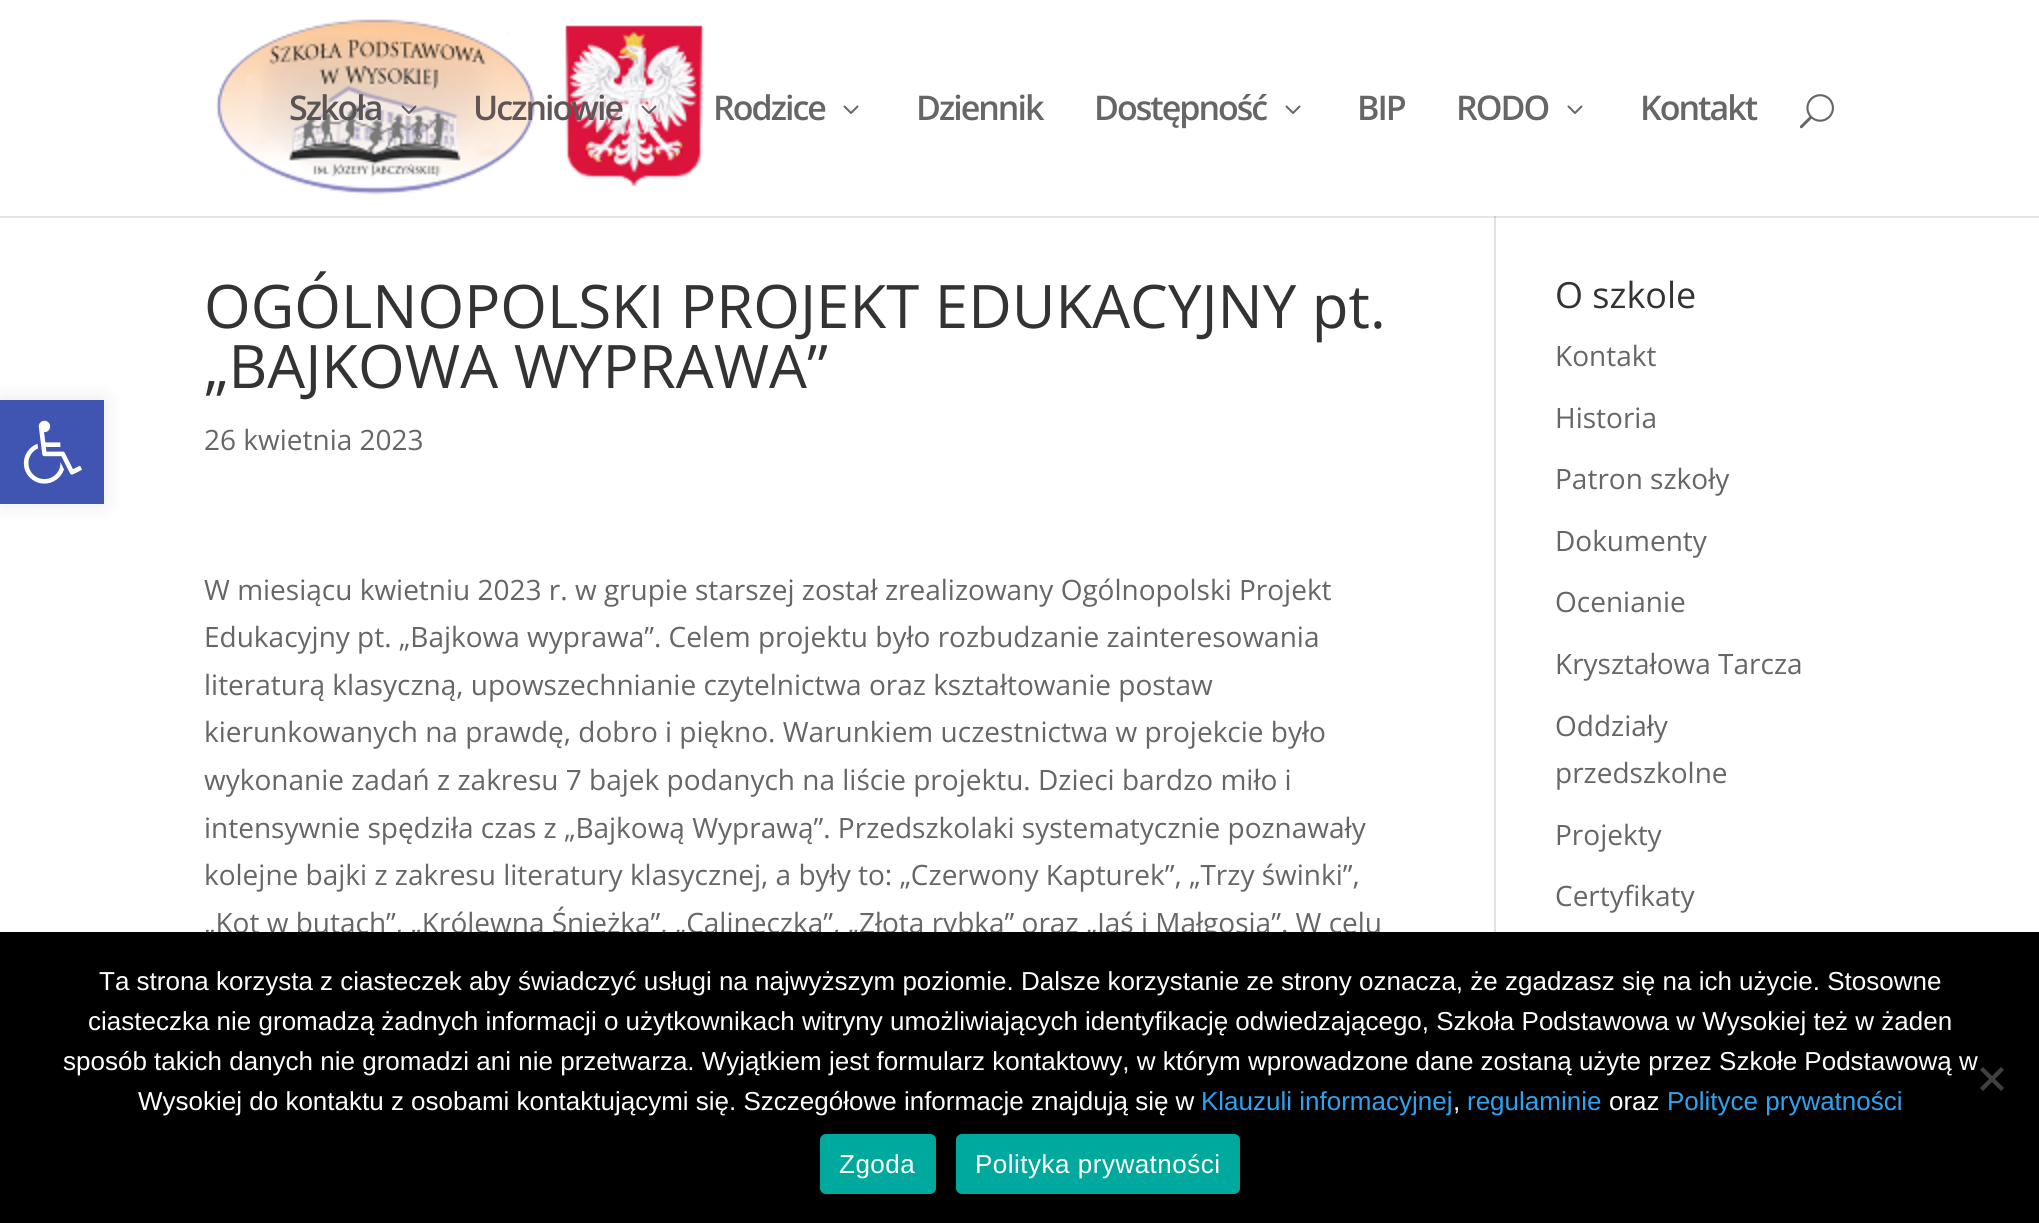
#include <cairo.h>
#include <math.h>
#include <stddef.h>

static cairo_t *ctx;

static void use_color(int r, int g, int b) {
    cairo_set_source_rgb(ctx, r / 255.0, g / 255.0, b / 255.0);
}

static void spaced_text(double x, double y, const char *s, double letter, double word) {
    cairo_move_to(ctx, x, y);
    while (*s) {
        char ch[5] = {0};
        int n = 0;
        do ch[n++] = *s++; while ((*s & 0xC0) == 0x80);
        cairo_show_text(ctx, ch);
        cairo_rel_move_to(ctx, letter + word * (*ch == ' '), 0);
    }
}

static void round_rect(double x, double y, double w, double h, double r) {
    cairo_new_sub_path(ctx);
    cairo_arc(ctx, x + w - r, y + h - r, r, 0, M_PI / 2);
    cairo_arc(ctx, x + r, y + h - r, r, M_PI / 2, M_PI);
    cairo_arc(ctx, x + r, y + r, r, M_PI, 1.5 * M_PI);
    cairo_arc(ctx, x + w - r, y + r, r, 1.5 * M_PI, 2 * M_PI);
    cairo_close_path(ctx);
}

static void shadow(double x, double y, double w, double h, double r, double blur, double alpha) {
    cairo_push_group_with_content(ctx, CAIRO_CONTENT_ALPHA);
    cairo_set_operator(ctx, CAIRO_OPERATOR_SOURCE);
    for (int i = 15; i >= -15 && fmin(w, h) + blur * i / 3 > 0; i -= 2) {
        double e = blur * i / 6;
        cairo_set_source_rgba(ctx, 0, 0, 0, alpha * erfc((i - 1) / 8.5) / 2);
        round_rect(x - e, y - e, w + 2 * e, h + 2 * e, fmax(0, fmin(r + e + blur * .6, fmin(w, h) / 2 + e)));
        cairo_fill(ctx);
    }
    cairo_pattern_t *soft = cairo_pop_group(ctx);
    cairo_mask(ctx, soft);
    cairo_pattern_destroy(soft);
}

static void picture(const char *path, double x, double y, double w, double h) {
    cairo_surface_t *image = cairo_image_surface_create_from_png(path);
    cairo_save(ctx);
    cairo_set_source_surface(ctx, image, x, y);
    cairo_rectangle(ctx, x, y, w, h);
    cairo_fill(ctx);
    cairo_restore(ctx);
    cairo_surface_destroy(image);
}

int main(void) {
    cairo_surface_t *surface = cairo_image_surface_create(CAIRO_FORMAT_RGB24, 2039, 1223);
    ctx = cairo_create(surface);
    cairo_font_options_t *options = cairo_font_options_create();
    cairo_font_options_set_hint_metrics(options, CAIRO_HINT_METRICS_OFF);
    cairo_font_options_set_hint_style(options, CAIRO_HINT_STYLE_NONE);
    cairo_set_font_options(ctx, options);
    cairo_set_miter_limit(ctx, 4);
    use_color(255, 255, 255);
    cairo_paint(ctx);
    use_color(230, 230, 230);
    cairo_rectangle(ctx, 0, 216, 2039, 2);
    cairo_fill(ctx);
    use_color(0, 0, 0);
    shadow(0, 400, 104, 104, 0, 10, 0.1);
    use_color(64, 84, 178);
    cairo_rectangle(ctx, 0, 400, 104, 104);
    cairo_fill(ctx);
    picture("img1.png", 23, 420, 59, 64);
    picture("img2.png", 216, 19, 487, 176);
    cairo_select_font_face(ctx, "Open Sans SemiBold", CAIRO_FONT_SLANT_NORMAL, CAIRO_FONT_WEIGHT_NORMAL);
    cairo_set_font_size(ctx, 34);
    use_color(89, 85, 83);
    spaced_text(289, 120, "Szkoła", -2, 0);
    picture("img3.png", 401, 105, 16, 9);
    use_color(97, 86, 85);
    spaced_text(473, 120, "Uczniowie", -2, 0);
    picture("img4.png", 641, 105, 16, 9);
    use_color(102, 102, 102);
    spaced_text(713, 120, "Rodzice", -2, 0);
    picture("img5.png", 843, 105, 16, 9);
    spaced_text(916, 120, "Dziennik", -2, 0);
    spaced_text(1094, 120, "Dostępność", -2, 0);
    picture("img5.png", 1285, 105, 16, 9);
    spaced_text(1357, 120, "BIP", -2, 0);
    spaced_text(1456, 120, "RODO", -2, 0);
    picture("img5.png", 1567, 105, 16, 9);
    spaced_text(1640, 120, "Kontakt", -2, 0);
    picture("img6.png", 1799, 94, 35, 35);
    use_color(226, 226, 226);
    cairo_rectangle(ctx, 1494, 218, 2, 714);
    cairo_fill(ctx);
    use_color(203, 203, 203);
    cairo_rectangle(ctx, 1494, 216, 2, 2);
    cairo_fill(ctx);
    cairo_select_font_face(ctx, "Open Sans", CAIRO_FONT_SLANT_NORMAL, CAIRO_FONT_WEIGHT_NORMAL);
    cairo_set_font_size(ctx, 60);
    use_color(51, 51, 51);
    cairo_move_to(ctx, 204, 328);
    cairo_show_text(ctx, "OGÓLNOPOLSKI PROJEKT EDUKACYJNY pt.");
    cairo_move_to(ctx, 204, 388);
    cairo_show_text(ctx, "„BAJKOWA WYPRAWA”");
    cairo_set_font_size(ctx, 28);
    use_color(102, 102, 102);
    cairo_move_to(ctx, 204, 450);
    cairo_show_text(ctx, "26 kwietnia 2023");
    cairo_move_to(ctx, 204, 600);
    cairo_show_text(ctx, "W miesiącu kwietniu 2023 r. w grupie starszej został zrealizowany Ogólnopolski Projekt");
    cairo_move_to(ctx, 204, 647);
    cairo_show_text(ctx, "Edukacyjny pt. „Bajkowa wyprawa”. Celem projektu było rozbudzanie zainteresowania");
    cairo_move_to(ctx, 204, 695);
    cairo_show_text(ctx, "literaturą klasyczną, upowszechnianie czytelnictwa oraz kształtowanie postaw");
    cairo_move_to(ctx, 204, 742);
    cairo_show_text(ctx, "kierunkowanych na prawdę, dobro i piękno. Warunkiem uczestnictwa w projekcie było");
    cairo_move_to(ctx, 204, 790);
    cairo_show_text(ctx, "wykonanie zadań z zakresu 7 bajek podanych na liście projektu. Dzieci bardzo miło i");
    cairo_move_to(ctx, 204, 838);
    cairo_show_text(ctx, "intensywnie spędziła czas z „Bajkową Wyprawą”. Przedszkolaki systematycznie poznawały");
    cairo_move_to(ctx, 204, 885);
    cairo_show_text(ctx, "kolejne bajki z zakresu literatury klasycznej, a były to: „Czerwony Kapturek”, „Trzy świnki”,");
    cairo_move_to(ctx, 204, 933);
    cairo_show_text(ctx, "„Kot w butach”, „Królewna Śnieżka”, „Calineczka”, „Złota rybka” oraz „Jaś i Małgosia”. W celu");
    cairo_set_font_size(ctx, 36);
    use_color(51, 51, 51);
    cairo_move_to(ctx, 1555, 308);
    cairo_show_text(ctx, "O szkole");
    cairo_set_font_size(ctx, 28);
    use_color(102, 102, 102);
    cairo_move_to(ctx, 1555, 366);
    cairo_show_text(ctx, "Kontakt");
    cairo_move_to(ctx, 1555, 428);
    cairo_show_text(ctx, "Historia");
    cairo_move_to(ctx, 1555, 489);
    cairo_show_text(ctx, "Patron szkoły");
    cairo_move_to(ctx, 1555, 551);
    cairo_show_text(ctx, "Dokumenty");
    cairo_move_to(ctx, 1555, 612);
    cairo_show_text(ctx, "Ocenianie");
    cairo_move_to(ctx, 1555, 674);
    cairo_show_text(ctx, "Kryształowa Tarcza");
    cairo_move_to(ctx, 1555, 736);
    cairo_show_text(ctx, "Oddziały");
    cairo_move_to(ctx, 1555, 783);
    cairo_show_text(ctx, "przedszkolne");
    cairo_move_to(ctx, 1555, 845);
    cairo_show_text(ctx, "Projekty");
    cairo_move_to(ctx, 1555, 906);
    cairo_show_text(ctx, "Certyfikaty");
    use_color(0, 0, 0);
    cairo_rectangle(ctx, 0, 932, 2039, 291);
    cairo_fill(ctx);
    cairo_select_font_face(ctx, "Liberation Sans", CAIRO_FONT_SLANT_NORMAL, CAIRO_FONT_WEIGHT_NORMAL);
    cairo_set_font_size(ctx, 26);
    use_color(255, 255, 255);
    cairo_move_to(ctx, 99, 990);
    cairo_show_text(ctx, "Ta strona korzysta z ciasteczek aby świadczyć usługi na najwyższym poziomie. Dalsze korzystanie ze strony oznacza, że zgadzasz się na ich użycie. Stosowne");
    cairo_move_to(ctx, 88, 1030);
    cairo_show_text(ctx, "ciasteczka nie gromadzą żadnych informacji o użytkownikach witryny umożliwiających identyfikację odwiedzającego, Szkoła Podstawowa w Wysokiej też w żaden");
    cairo_move_to(ctx, 63, 1070);
    cairo_show_text(ctx, "sposób takich danych nie gromadzi ani nie przetwarza. Wyjątkiem jest formularz kontaktowy, w którym wprowadzone dane zostaną użyte przez Szkołe Podstawową w");
    cairo_move_to(ctx, 138, 1110);
    cairo_show_text(ctx, "Wysokiej do kontaktu z osobami kontaktującymi się. Szczegółowe informacje znajdują się w");
    use_color(46, 163, 242);
    cairo_move_to(ctx, 1201, 1110);
    cairo_show_text(ctx, "Klauzuli informacyjnej");
    use_color(255, 255, 255);
    cairo_move_to(ctx, 1453, 1110);
    cairo_show_text(ctx, ",");
    use_color(46, 163, 242);
    cairo_move_to(ctx, 1467, 1110);
    cairo_show_text(ctx, "regulaminie");
    use_color(255, 255, 255);
    cairo_move_to(ctx, 1609, 1110);
    cairo_show_text(ctx, "oraz");
    use_color(46, 163, 242);
    cairo_move_to(ctx, 1667, 1110);
    cairo_show_text(ctx, "Polityce prywatności");
    use_color(64, 64, 64);
    cairo_new_path(ctx);
    cairo_move_to(ctx, 2001, 1067);
    cairo_line_to(ctx, 2004, 1070);
    cairo_line_to(ctx, 1983, 1091);
    cairo_line_to(ctx, 1980, 1088);
    cairo_close_path(ctx);
    cairo_fill(ctx);
    cairo_new_path(ctx);
    cairo_move_to(ctx, 1980, 1070);
    cairo_line_to(ctx, 1983, 1067);
    cairo_line_to(ctx, 2004, 1088);
    cairo_line_to(ctx, 2001, 1091);
    cairo_close_path(ctx);
    cairo_fill(ctx);
    use_color(0, 169, 157);
    round_rect(820, 1134, 116, 60, 6);
    cairo_fill(ctx);
    use_color(255, 255, 255);
    spaced_text(839, 1173, "Zgoda", 0.5, 0);
    use_color(0, 169, 157);
    round_rect(956, 1134, 284, 60, 6);
    cairo_fill(ctx);
    use_color(255, 255, 255);
    spaced_text(975, 1173, "Polityka prywatności", 0.5, 0);
    cairo_surface_write_to_png(surface, "result.png");
    cairo_font_options_destroy(options);
    cairo_destroy(ctx);
    cairo_surface_destroy(surface);
    return 0;
}
